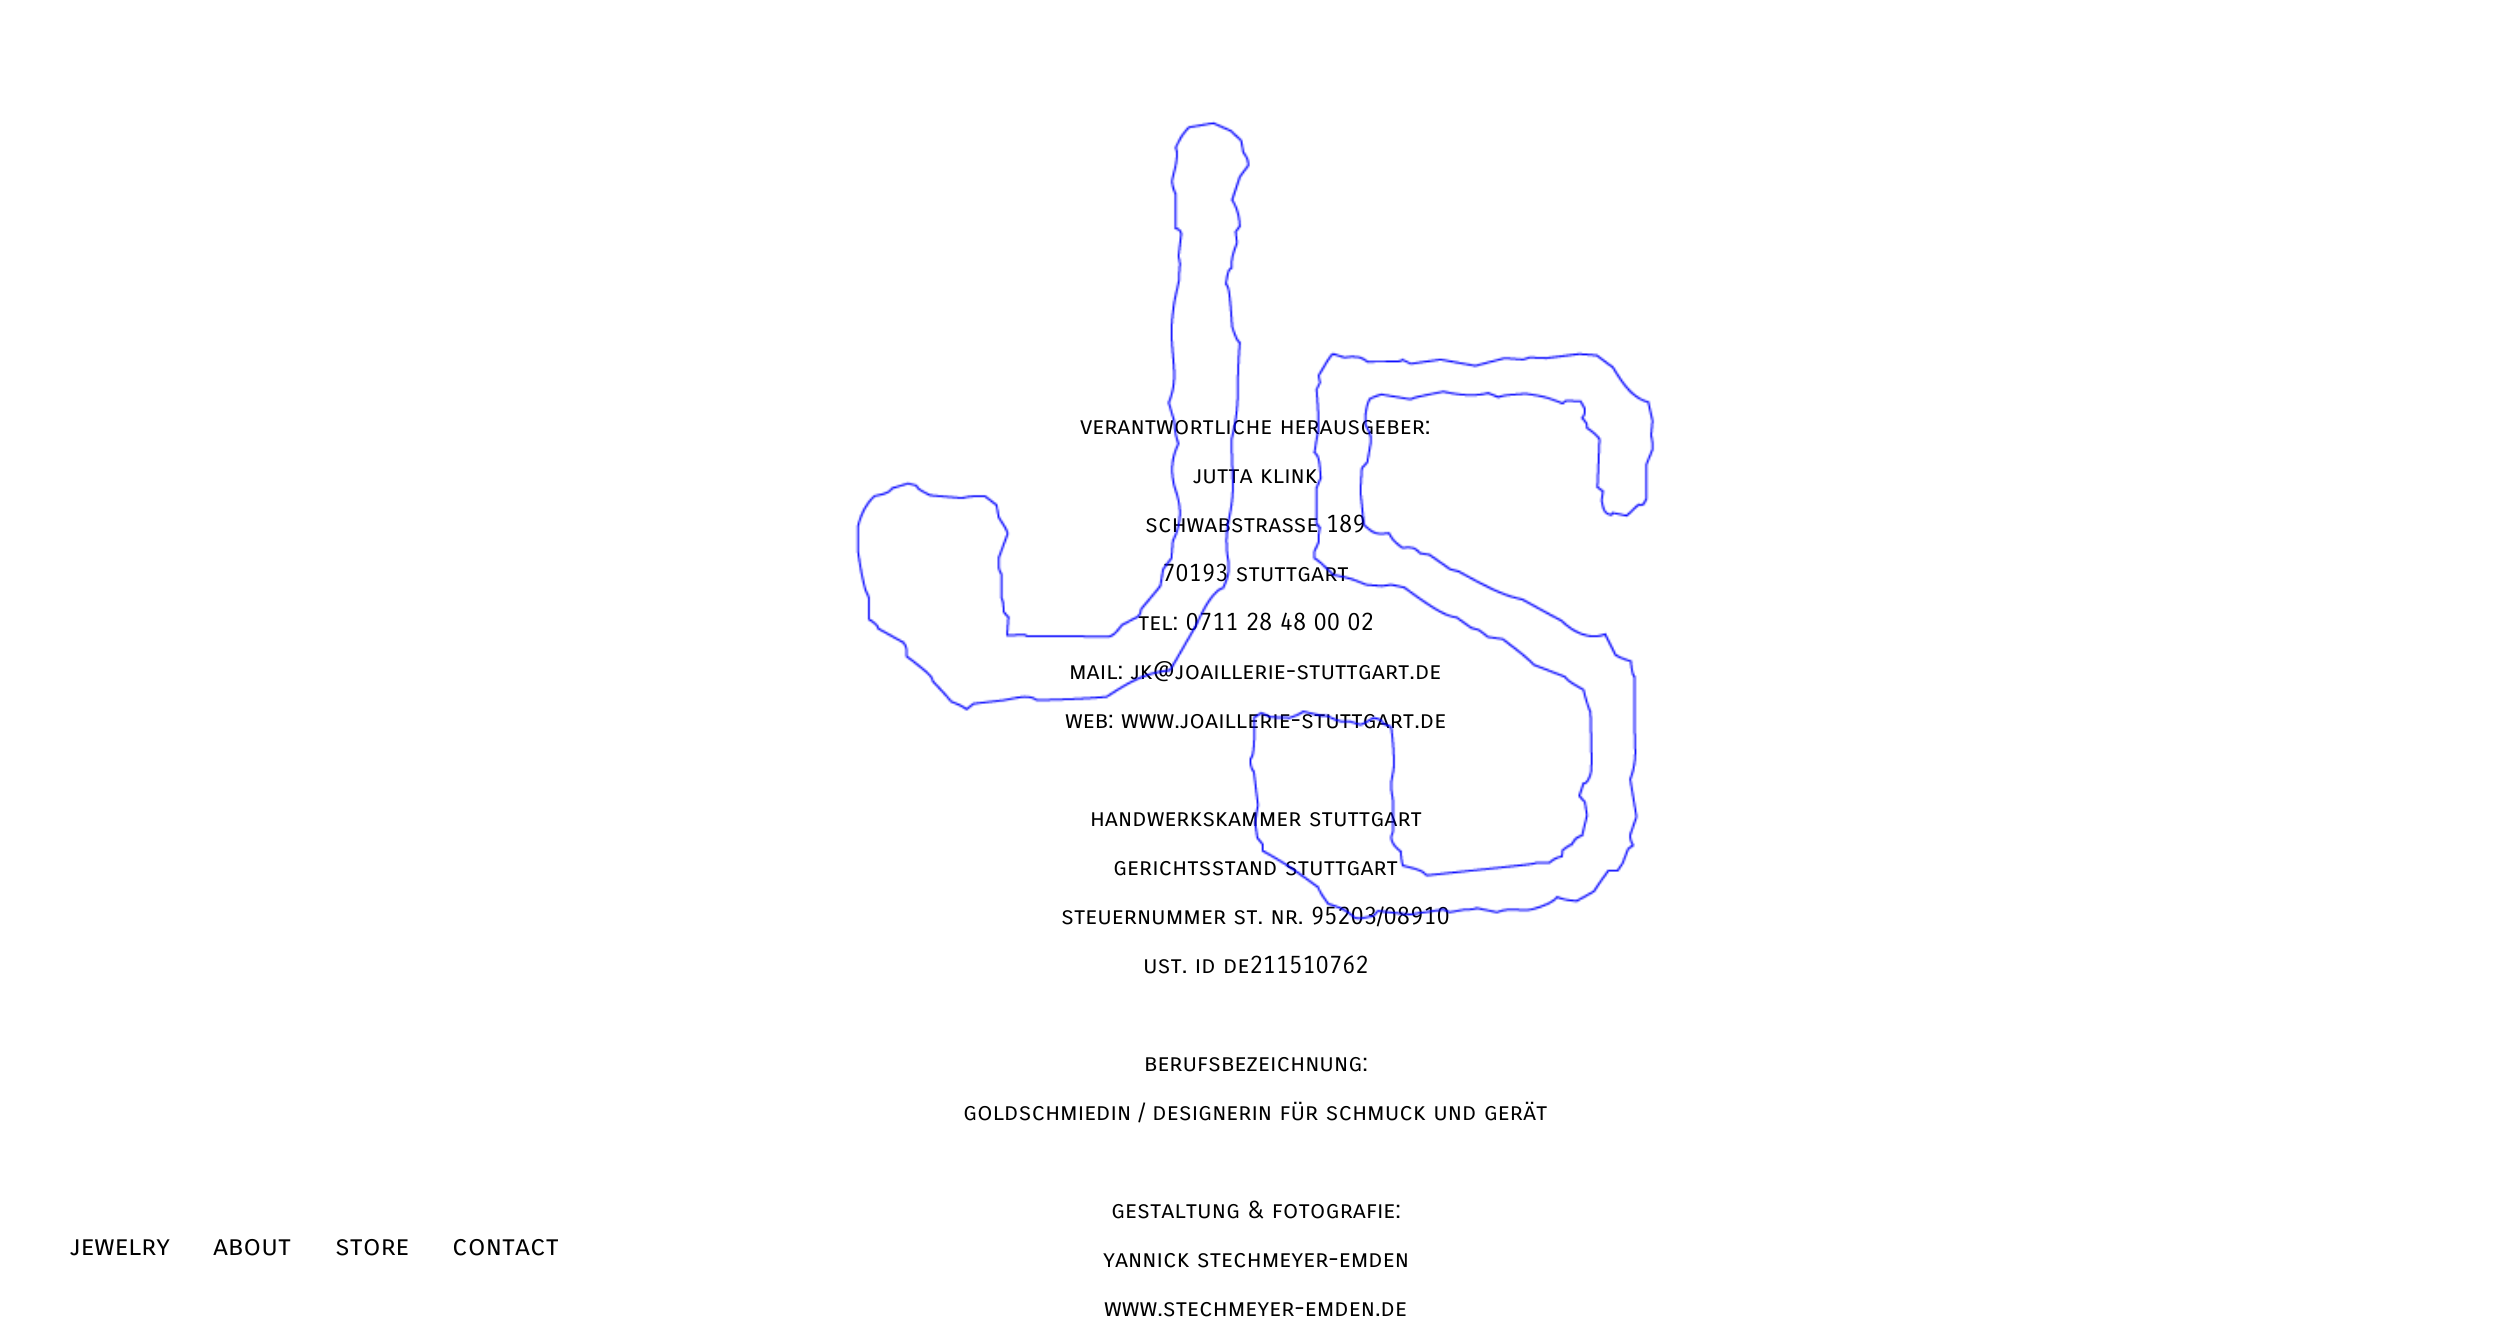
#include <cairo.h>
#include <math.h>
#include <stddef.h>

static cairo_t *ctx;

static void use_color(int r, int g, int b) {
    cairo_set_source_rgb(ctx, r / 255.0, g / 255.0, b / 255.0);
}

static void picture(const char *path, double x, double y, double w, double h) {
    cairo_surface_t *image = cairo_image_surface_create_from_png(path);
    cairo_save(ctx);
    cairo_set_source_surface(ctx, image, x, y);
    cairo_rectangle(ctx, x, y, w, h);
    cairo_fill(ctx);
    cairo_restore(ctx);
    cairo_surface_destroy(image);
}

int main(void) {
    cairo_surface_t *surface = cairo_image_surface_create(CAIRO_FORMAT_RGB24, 2510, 1317);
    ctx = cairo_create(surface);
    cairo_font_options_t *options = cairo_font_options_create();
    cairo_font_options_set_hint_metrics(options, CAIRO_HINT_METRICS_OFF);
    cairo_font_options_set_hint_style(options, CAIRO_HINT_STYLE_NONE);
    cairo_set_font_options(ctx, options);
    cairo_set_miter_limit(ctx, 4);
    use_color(255, 255, 255);
    cairo_paint(ctx);
    cairo_select_font_face(ctx, "Carrois Gothic SC", CAIRO_FONT_SLANT_NORMAL, CAIRO_FONT_WEIGHT_NORMAL);
    cairo_set_font_size(ctx, 24.5);
    use_color(0, 0, 0);
    cairo_move_to(ctx, 1080, 434);
    cairo_show_text(ctx, "verantwortliche herausgeber:");
    cairo_move_to(ctx, 1193, 483);
    cairo_show_text(ctx, "jutta klink");
    cairo_move_to(ctx, 1145, 532);
    cairo_show_text(ctx, "schwabstraße 189");
    cairo_move_to(ctx, 1162, 581);
    cairo_show_text(ctx, "70193 stuttgart");
    cairo_move_to(ctx, 1138, 630);
    cairo_show_text(ctx, "tel: 0711 28 48 00 02");
    cairo_move_to(ctx, 1069, 679);
    cairo_show_text(ctx, "mail: jk@joaillerie-stuttgart.de");
    cairo_move_to(ctx, 1065, 728);
    cairo_show_text(ctx, "web: www.joaillerie-stuttgart.de");
    cairo_move_to(ctx, 1090, 826);
    cairo_show_text(ctx, "handwerkskammer stuttgart");
    cairo_move_to(ctx, 1113, 875);
    cairo_show_text(ctx, "gerichtsstand stuttgart");
    cairo_move_to(ctx, 1061, 924);
    cairo_show_text(ctx, "steuernummer st. nr. 95203/08910");
    picture("img1.png", 855, 120, 800, 801);
    cairo_set_font_size(ctx, 28);
    cairo_move_to(ctx, 70, 1255);
    cairo_show_text(ctx, "jewelry");
    cairo_move_to(ctx, 213, 1255);
    cairo_show_text(ctx, "about");
    cairo_move_to(ctx, 335, 1255);
    cairo_show_text(ctx, "store");
    cairo_move_to(ctx, 452, 1255);
    cairo_show_text(ctx, "contact");
    cairo_set_font_size(ctx, 24.5);
    cairo_move_to(ctx, 1143, 973);
    cairo_show_text(ctx, "ust. id de211510762");
    cairo_move_to(ctx, 1144, 1071);
    cairo_show_text(ctx, "berufsbezeichnung:");
    cairo_move_to(ctx, 963, 1120);
    cairo_show_text(ctx, "goldschmiedin / designerin für schmuck und gerät");
    cairo_move_to(ctx, 1111, 1218);
    cairo_show_text(ctx, "gestaltung & fotografie:");
    cairo_move_to(ctx, 1103, 1267);
    cairo_show_text(ctx, "yannick stechmeyer-emden");
    cairo_move_to(ctx, 1104, 1316);
    cairo_show_text(ctx, "www.stechmeyer-emden.de");
    cairo_surface_write_to_png(surface, "result.png");
    cairo_font_options_destroy(options);
    cairo_destroy(ctx);
    cairo_surface_destroy(surface);
    return 0;
}
